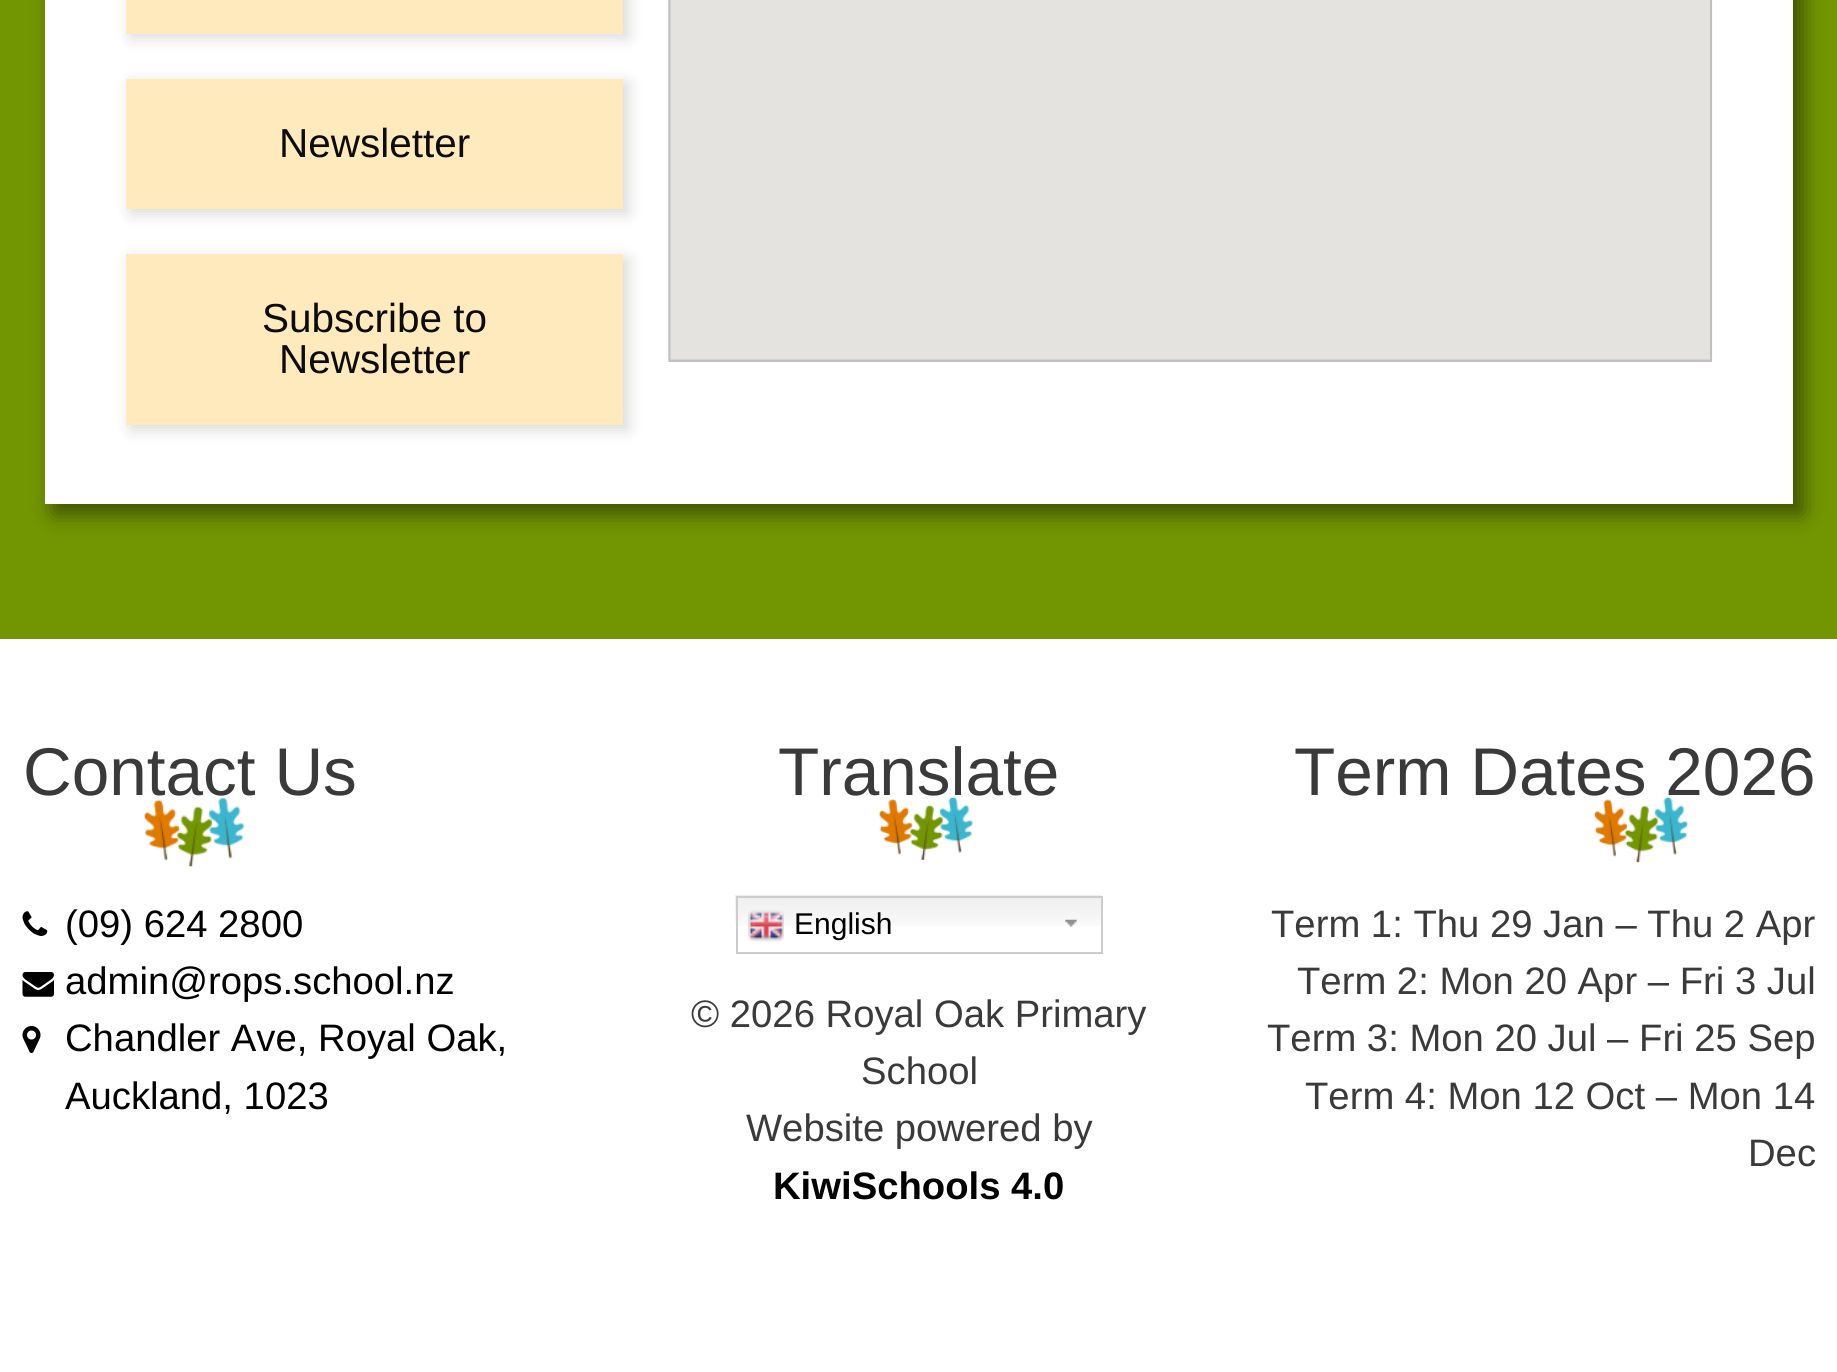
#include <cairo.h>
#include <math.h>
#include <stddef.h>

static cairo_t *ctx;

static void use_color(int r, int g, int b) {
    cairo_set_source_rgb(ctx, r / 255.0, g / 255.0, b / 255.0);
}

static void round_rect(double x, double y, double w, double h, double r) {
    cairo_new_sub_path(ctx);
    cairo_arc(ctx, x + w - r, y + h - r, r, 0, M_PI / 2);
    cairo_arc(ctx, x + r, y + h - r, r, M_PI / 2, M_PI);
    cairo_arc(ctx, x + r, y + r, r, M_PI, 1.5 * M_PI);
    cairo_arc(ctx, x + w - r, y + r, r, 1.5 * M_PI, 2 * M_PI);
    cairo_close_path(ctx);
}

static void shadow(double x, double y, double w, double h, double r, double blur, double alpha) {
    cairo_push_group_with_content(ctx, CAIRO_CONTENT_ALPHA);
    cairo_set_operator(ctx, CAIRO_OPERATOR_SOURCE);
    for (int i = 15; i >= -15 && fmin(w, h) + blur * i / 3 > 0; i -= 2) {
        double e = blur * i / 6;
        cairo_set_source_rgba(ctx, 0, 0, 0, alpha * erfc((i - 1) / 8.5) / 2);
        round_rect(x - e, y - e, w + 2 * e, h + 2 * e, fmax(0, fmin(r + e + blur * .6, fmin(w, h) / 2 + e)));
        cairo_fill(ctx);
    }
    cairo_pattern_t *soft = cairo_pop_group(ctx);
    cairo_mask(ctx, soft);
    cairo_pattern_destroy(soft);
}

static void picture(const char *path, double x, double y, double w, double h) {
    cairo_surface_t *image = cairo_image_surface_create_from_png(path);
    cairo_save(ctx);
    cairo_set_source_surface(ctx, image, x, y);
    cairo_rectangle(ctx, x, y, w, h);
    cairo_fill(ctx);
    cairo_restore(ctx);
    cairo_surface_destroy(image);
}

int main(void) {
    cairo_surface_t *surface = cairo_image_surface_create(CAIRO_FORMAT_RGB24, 1837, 1372);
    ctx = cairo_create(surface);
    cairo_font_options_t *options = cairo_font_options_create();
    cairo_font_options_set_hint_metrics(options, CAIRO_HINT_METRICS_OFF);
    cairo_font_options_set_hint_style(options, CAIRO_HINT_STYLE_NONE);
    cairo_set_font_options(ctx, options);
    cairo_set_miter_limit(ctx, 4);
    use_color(114, 150, 1);
    cairo_paint(ctx);
    use_color(0, 0, 0);
    shadow(54, -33, 1748, 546, 0, 11, 0.5);
    use_color(255, 255, 255);
    cairo_rectangle(ctx, 45, 0, 1748, 504);
    cairo_fill(ctx);
    use_color(0, 0, 0);
    shadow(131, -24, 497, 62, 0, 8, 0.15);
    use_color(255, 234, 189);
    cairo_rectangle(ctx, 126, 0, 497, 34);
    cairo_fill(ctx);
    use_color(0, 0, 0);
    shadow(131, 83, 497, 131, 0, 8, 0.15);
    use_color(255, 234, 189);
    cairo_rectangle(ctx, 126, 79, 497, 130);
    cairo_fill(ctx);
    cairo_select_font_face(ctx, "Liberation Sans", CAIRO_FONT_SLANT_NORMAL, CAIRO_FONT_WEIGHT_NORMAL);
    cairo_set_font_size(ctx, 40.5);
    use_color(12, 12, 12);
    cairo_move_to(ctx, 279, 157);
    cairo_show_text(ctx, "Newsletter");
    use_color(0, 0, 0);
    shadow(131, 259, 497, 171, 0, 8, 0.15);
    use_color(255, 234, 189);
    cairo_rectangle(ctx, 126, 254, 497, 171);
    cairo_fill(ctx);
    use_color(12, 12, 12);
    cairo_move_to(ctx, 262, 332);
    cairo_show_text(ctx, "Subscribe to");
    cairo_move_to(ctx, 279, 373);
    cairo_show_text(ctx, "Newsletter");
    picture("img1.png", 668, 0, 1045, 362);
    use_color(255, 255, 255);
    cairo_rectangle(ctx, 0, 639, 1837, 733);
    cairo_fill(ctx);
    cairo_set_font_size(ctx, 67.5);
    use_color(58, 58, 58);
    cairo_move_to(ctx, 23, 795);
    cairo_show_text(ctx, "Contact Us");
    picture("img2.png", 144, 798, 101, 69);
    picture("img3.png", 22, 911, 26, 25);
    cairo_set_font_size(ctx, 38.25);
    use_color(0, 0, 0);
    cairo_move_to(ctx, 65, 937);
    cairo_show_text(ctx, "(09) 624 2800");
    picture("img4.png", 22, 972, 32, 25);
    cairo_move_to(ctx, 65, 994);
    cairo_show_text(ctx, "admin@rops.school.nz");
    picture("img5.png", 22, 1026, 19, 27);
    cairo_move_to(ctx, 65, 1051);
    cairo_show_text(ctx, "Chandler Ave, Royal Oak,");
    cairo_move_to(ctx, 65, 1109);
    cairo_show_text(ctx, "Auckland, 1023");
    cairo_set_font_size(ctx, 67.5);
    use_color(58, 58, 58);
    cairo_move_to(ctx, 778, 795);
    cairo_show_text(ctx, "Translate");
    picture("img6.png", 879, 797, 95, 63);
    picture("img7.png", 735, 895, 366, 31);
    picture("img8.png", 1065, 919, 12, 8);
    cairo_rectangle(ctx, 737, 897, 365, 56);
    use_color(204, 204, 204);
    cairo_stroke(ctx);
    picture("img9.png", 748, 910, 36, 32);
    cairo_set_font_size(ctx, 30);
    use_color(0, 0, 0);
    cairo_move_to(ctx, 794, 934);
    cairo_show_text(ctx, "English");
    cairo_set_font_size(ctx, 38.25);
    use_color(58, 58, 58);
    cairo_move_to(ctx, 691, 1027);
    cairo_show_text(ctx, "© 2026 Royal Oak Primary");
    cairo_move_to(ctx, 861, 1084);
    cairo_show_text(ctx, "School");
    cairo_move_to(ctx, 746, 1141);
    cairo_show_text(ctx, "Website powered by");
    cairo_select_font_face(ctx, "Liberation Sans", CAIRO_FONT_SLANT_NORMAL, CAIRO_FONT_WEIGHT_BOLD);
    use_color(0, 0, 0);
    cairo_move_to(ctx, 773, 1199);
    cairo_show_text(ctx, "KiwiSchools 4.0");
    cairo_select_font_face(ctx, "Liberation Sans", CAIRO_FONT_SLANT_NORMAL, CAIRO_FONT_WEIGHT_NORMAL);
    cairo_set_font_size(ctx, 67.5);
    use_color(58, 58, 58);
    cairo_move_to(ctx, 1294, 795);
    cairo_show_text(ctx, "Term Dates 2026");
    picture("img10.png", 1594, 797, 95, 66);
    cairo_set_font_size(ctx, 38.25);
    cairo_move_to(ctx, 1271, 937);
    cairo_show_text(ctx, "Term 1: Thu 29 Jan – Thu 2 Apr");
    cairo_move_to(ctx, 1297, 994);
    cairo_show_text(ctx, "Term 2: Mon 20 Apr – Fri 3 Jul");
    cairo_move_to(ctx, 1267, 1051);
    cairo_show_text(ctx, "Term 3: Mon 20 Jul – Fri 25 Sep");
    cairo_move_to(ctx, 1305, 1109);
    cairo_show_text(ctx, "Term 4: Mon 12 Oct – Mon 14");
    cairo_move_to(ctx, 1748, 1166);
    cairo_show_text(ctx, "Dec");
    cairo_surface_write_to_png(surface, "result.png");
    cairo_font_options_destroy(options);
    cairo_destroy(ctx);
    cairo_surface_destroy(surface);
    return 0;
}
